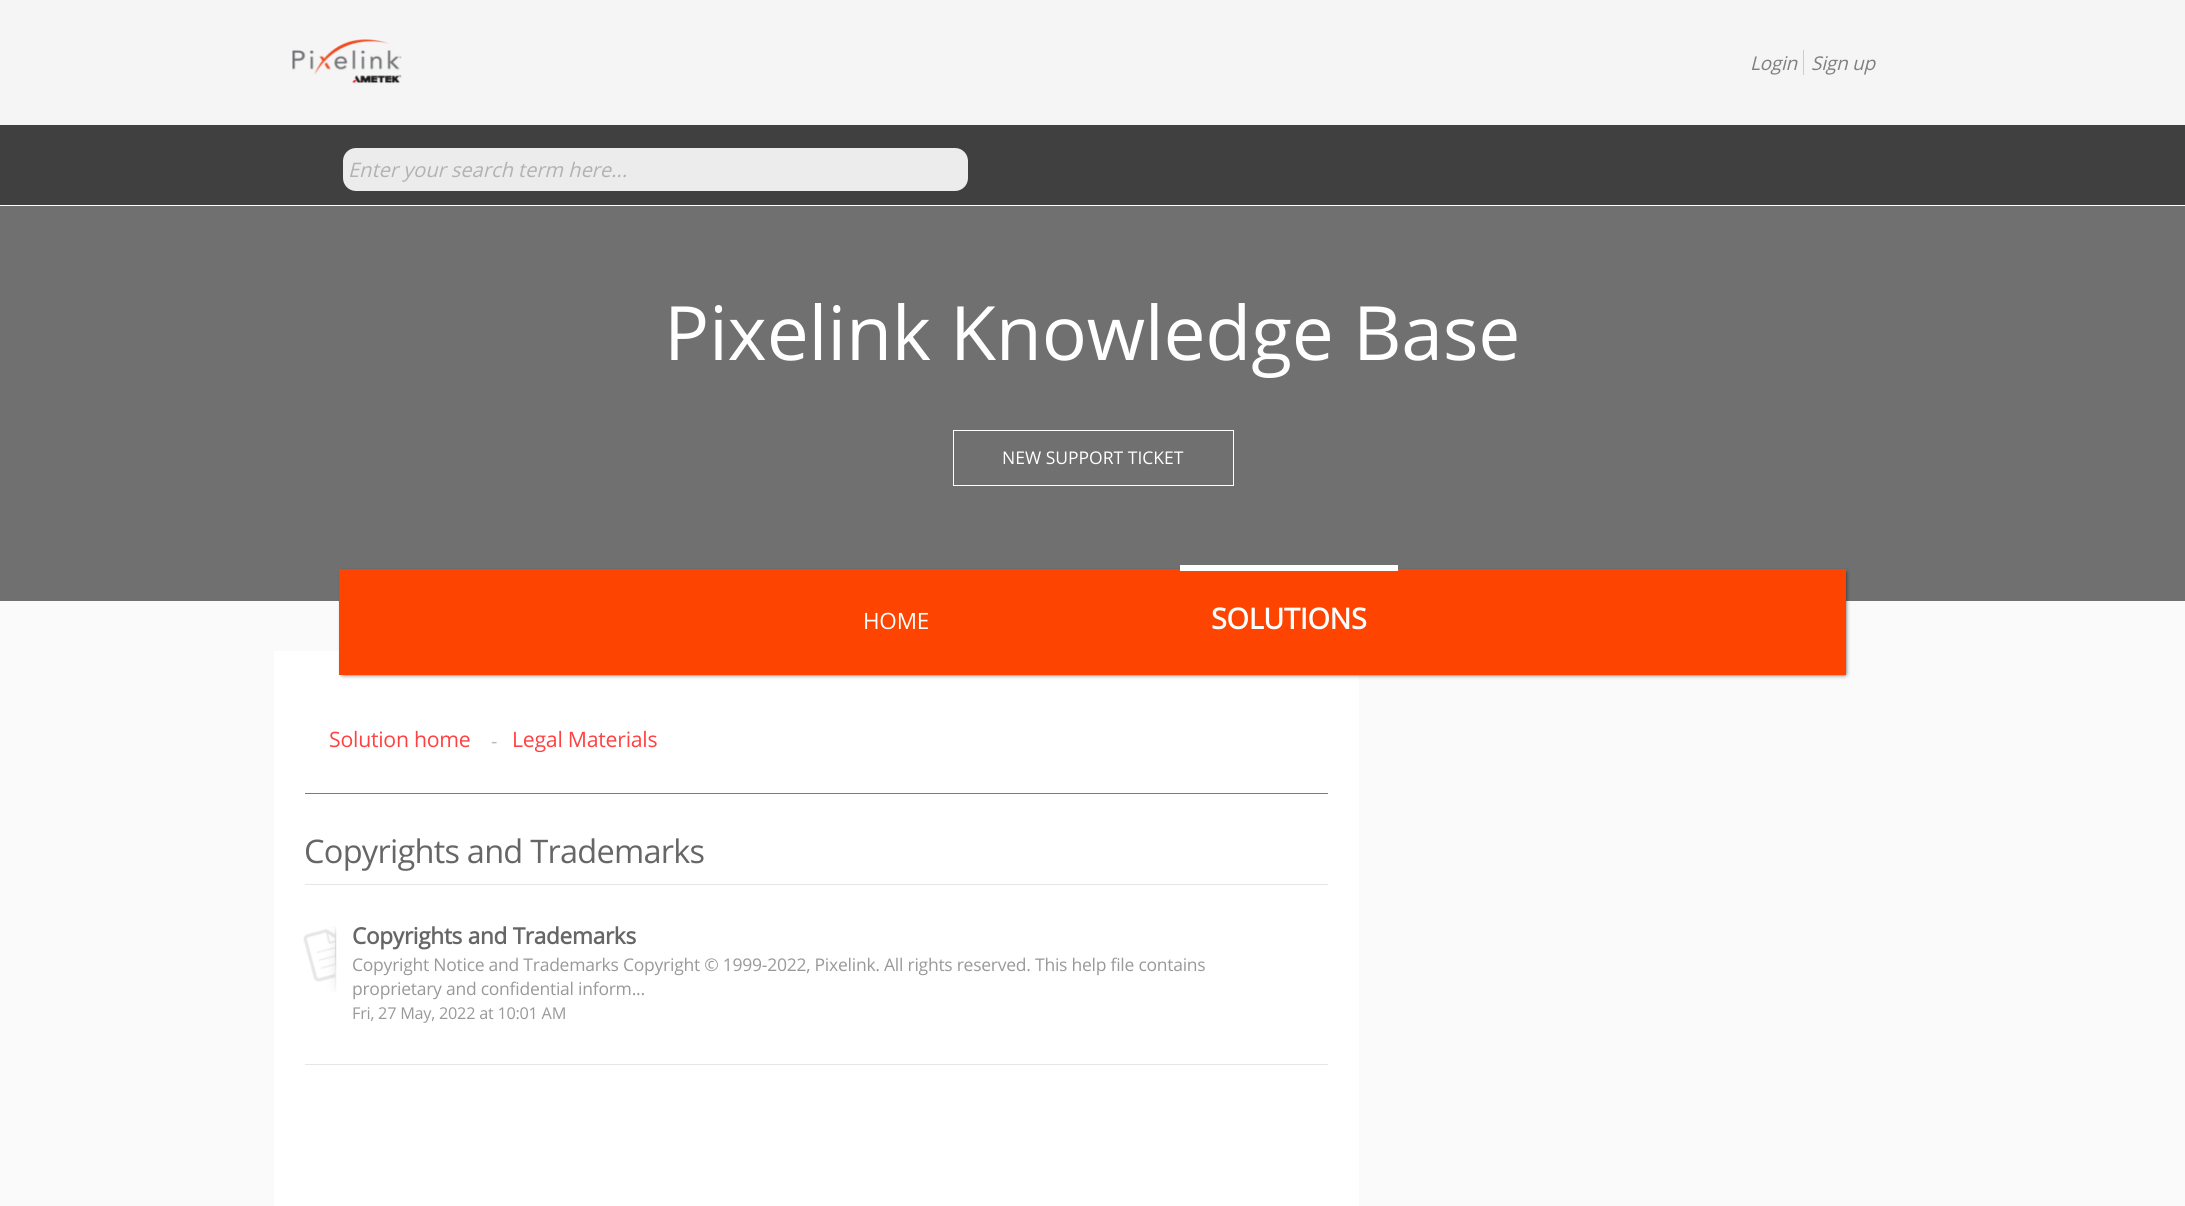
#include <cairo.h>
#include <math.h>
#include <stddef.h>

static cairo_t *ctx;

static void use_color(int r, int g, int b) {
    cairo_set_source_rgb(ctx, r / 255.0, g / 255.0, b / 255.0);
}

static void spaced_text(double x, double y, const char *s, double letter, double word) {
    cairo_move_to(ctx, x, y);
    while (*s) {
        char ch[5] = {0};
        int n = 0;
        do ch[n++] = *s++; while ((*s & 0xC0) == 0x80);
        cairo_show_text(ctx, ch);
        cairo_rel_move_to(ctx, letter + word * (*ch == ' '), 0);
    }
}

static void round_rect(double x, double y, double w, double h, double r) {
    cairo_new_sub_path(ctx);
    cairo_arc(ctx, x + w - r, y + h - r, r, 0, M_PI / 2);
    cairo_arc(ctx, x + r, y + h - r, r, M_PI / 2, M_PI);
    cairo_arc(ctx, x + r, y + r, r, M_PI, 1.5 * M_PI);
    cairo_arc(ctx, x + w - r, y + r, r, 1.5 * M_PI, 2 * M_PI);
    cairo_close_path(ctx);
}

static void shadow(double x, double y, double w, double h, double r, double blur, double alpha) {
    cairo_push_group_with_content(ctx, CAIRO_CONTENT_ALPHA);
    cairo_set_operator(ctx, CAIRO_OPERATOR_SOURCE);
    for (int i = 15; i >= -15 && fmin(w, h) + blur * i / 3 > 0; i -= 2) {
        double e = blur * i / 6;
        cairo_set_source_rgba(ctx, 0, 0, 0, alpha * erfc((i - 1) / 8.5) / 2);
        round_rect(x - e, y - e, w + 2 * e, h + 2 * e, fmax(0, fmin(r + e + blur * .6, fmin(w, h) / 2 + e)));
        cairo_fill(ctx);
    }
    cairo_pattern_t *soft = cairo_pop_group(ctx);
    cairo_mask(ctx, soft);
    cairo_pattern_destroy(soft);
}

static void picture(const char *path, double x, double y, double w, double h) {
    cairo_surface_t *image = cairo_image_surface_create_from_png(path);
    cairo_save(ctx);
    cairo_set_source_surface(ctx, image, x, y);
    cairo_rectangle(ctx, x, y, w, h);
    cairo_fill(ctx);
    cairo_restore(ctx);
    cairo_surface_destroy(image);
}

int main(void) {
    cairo_surface_t *surface = cairo_image_surface_create(CAIRO_FORMAT_RGB24, 2185, 1206);
    ctx = cairo_create(surface);
    cairo_font_options_t *options = cairo_font_options_create();
    cairo_font_options_set_hint_metrics(options, CAIRO_HINT_METRICS_OFF);
    cairo_font_options_set_hint_style(options, CAIRO_HINT_STYLE_NONE);
    cairo_set_font_options(ctx, options);
    cairo_set_miter_limit(ctx, 4);
    use_color(250, 250, 250);
    cairo_paint(ctx);
    use_color(245, 245, 245);
    cairo_rectangle(ctx, 0, 0, 2185, 125);
    cairo_fill(ctx);
    picture("img1.png", 292, 39, 110, 45);
    cairo_select_font_face(ctx, "Open Sans", CAIRO_FONT_SLANT_ITALIC, CAIRO_FONT_WEIGHT_NORMAL);
    cairo_set_font_size(ctx, 19);
    use_color(127, 127, 127);
    spaced_text(1750, 70, "Login", -0.25, 0);
    use_color(204, 204, 204);
    cairo_rectangle(ctx, 1803, 50, 1, 25);
    cairo_fill(ctx);
    use_color(127, 127, 127);
    spaced_text(1811, 70, "Sign up", -0.25, 0);
    use_color(64, 64, 64);
    cairo_rectangle(ctx, 0, 125, 2185, 80);
    cairo_fill(ctx);
    use_color(255, 255, 255);
    cairo_rectangle(ctx, 0, 205, 2185, 1);
    cairo_fill(ctx);
    use_color(236, 236, 236);
    round_rect(343, 148, 625, 43, 13);
    cairo_fill(ctx);
    cairo_set_font_size(ctx, 20);
    use_color(178, 178, 178);
    cairo_move_to(ctx, 348, 177);
    cairo_show_text(ctx, "Enter your search term here...");
    use_color(113, 112, 112);
    cairo_rectangle(ctx, 0, 206, 2185, 395);
    cairo_fill(ctx);
    cairo_select_font_face(ctx, "Open Sans", CAIRO_FONT_SLANT_NORMAL, CAIRO_FONT_WEIGHT_NORMAL);
    cairo_set_font_size(ctx, 75);
    use_color(255, 255, 255);
    spaced_text(664, 360, "Pixelink Knowledge Base", -0.25, 0);
    cairo_rectangle(ctx, 953.5, 430.5, 280, 55);
    cairo_set_line_width(ctx, 1);
    cairo_stroke(ctx);
    cairo_set_font_size(ctx, 17.5);
    cairo_move_to(ctx, 1002, 464);
    cairo_show_text(ctx, "NEW SUPPORT TICKET");
    cairo_rectangle(ctx, 274, 651, 1085, 555);
    cairo_fill(ctx);
    use_color(0, 0, 0);
    shadow(343, 573, 1502, 101, 0, 2.5, 1);
    use_color(253, 68, 0);
    cairo_rectangle(ctx, 339, 569, 1507, 106);
    cairo_fill(ctx);
    cairo_set_font_size(ctx, 22.5);
    use_color(255, 255, 255);
    spaced_text(863, 629, "HOME", -0.25, 0);
    cairo_select_font_face(ctx, "Open Sans", CAIRO_FONT_SLANT_NORMAL, CAIRO_FONT_WEIGHT_BOLD);
    cairo_set_font_size(ctx, 28.75);
    spaced_text(1211, 629, "SOLUTIONS", -0.25, 0);
    cairo_rectangle(ctx, 1180, 565, 218, 6);
    cairo_fill(ctx);
    use_color(255, 65, 65);
    cairo_rectangle(ctx, 305, 793, 1023, 1);
    cairo_fill(ctx);
    cairo_select_font_face(ctx, "Open Sans", CAIRO_FONT_SLANT_NORMAL, CAIRO_FONT_WEIGHT_NORMAL);
    cairo_set_font_size(ctx, 21.25);
    spaced_text(329, 747, "Solution home", -0.25, 0);
    cairo_set_font_size(ctx, 20);
    use_color(187, 187, 187);
    spaced_text(491, 748, "-", -0.25, 0);
    cairo_set_font_size(ctx, 21.25);
    use_color(255, 65, 65);
    spaced_text(512, 747, "Legal Materials", -0.25, 0);
    cairo_set_font_size(ctx, 32.5);
    use_color(102, 102, 102);
    spaced_text(304, 863, "Copyrights and Trademarks", -0.75, 0);
    use_color(230, 230, 230);
    cairo_rectangle(ctx, 305, 1064, 1023, 1);
    cairo_fill(ctx);
    cairo_rectangle(ctx, 305, 884, 1023, 1);
    cairo_fill(ctx);
    picture("img2.png", 303, 926, 34, 66);
    cairo_select_font_face(ctx, "Open Sans", CAIRO_FONT_SLANT_NORMAL, CAIRO_FONT_WEIGHT_BOLD);
    cairo_set_font_size(ctx, 22.5);
    use_color(102, 102, 102);
    spaced_text(352, 944, "Copyrights and Trademarks", -0.25, 0);
    cairo_select_font_face(ctx, "Open Sans", CAIRO_FONT_SLANT_NORMAL, CAIRO_FONT_WEIGHT_NORMAL);
    cairo_set_font_size(ctx, 17.5);
    use_color(153, 153, 153);
    spaced_text(352, 971, "Copyright Notice and Trademarks Copyright © 1999-2022, Pixelink. All rights reserved. This help file contains", -0.25, 0);
    spaced_text(352, 995, "proprietary and confidential inform...", -0.25, 0);
    cairo_set_font_size(ctx, 16.25);
    spaced_text(352, 1019, "Fri, 27 May, 2022 at 10:01 AM", -0.25, 0);
    cairo_surface_write_to_png(surface, "result.png");
    cairo_font_options_destroy(options);
    cairo_destroy(ctx);
    cairo_surface_destroy(surface);
    return 0;
}
